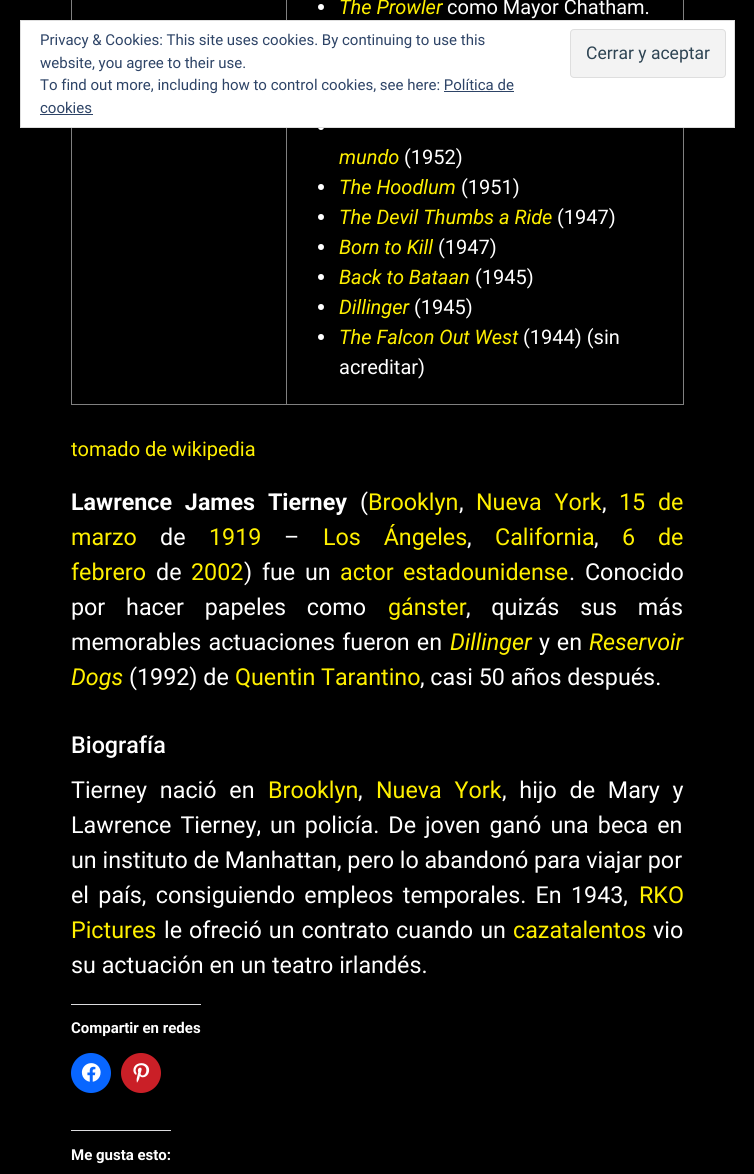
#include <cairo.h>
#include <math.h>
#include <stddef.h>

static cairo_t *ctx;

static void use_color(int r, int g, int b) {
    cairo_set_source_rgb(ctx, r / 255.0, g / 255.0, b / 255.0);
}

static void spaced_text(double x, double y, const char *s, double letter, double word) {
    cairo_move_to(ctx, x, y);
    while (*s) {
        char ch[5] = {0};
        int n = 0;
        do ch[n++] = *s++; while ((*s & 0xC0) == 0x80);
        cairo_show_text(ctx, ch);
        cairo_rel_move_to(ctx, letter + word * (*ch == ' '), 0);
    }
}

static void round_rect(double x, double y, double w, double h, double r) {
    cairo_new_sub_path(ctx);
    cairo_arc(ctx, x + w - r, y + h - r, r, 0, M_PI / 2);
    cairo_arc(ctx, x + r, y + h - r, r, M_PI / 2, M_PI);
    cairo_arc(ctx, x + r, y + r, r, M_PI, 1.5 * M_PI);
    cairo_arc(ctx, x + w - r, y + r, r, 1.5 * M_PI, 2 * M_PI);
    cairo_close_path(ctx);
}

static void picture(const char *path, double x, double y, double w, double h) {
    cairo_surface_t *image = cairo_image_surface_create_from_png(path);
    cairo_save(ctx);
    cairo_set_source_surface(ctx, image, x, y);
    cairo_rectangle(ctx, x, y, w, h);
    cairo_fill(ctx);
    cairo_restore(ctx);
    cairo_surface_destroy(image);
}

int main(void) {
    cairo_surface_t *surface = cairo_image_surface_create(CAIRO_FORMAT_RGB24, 754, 1174);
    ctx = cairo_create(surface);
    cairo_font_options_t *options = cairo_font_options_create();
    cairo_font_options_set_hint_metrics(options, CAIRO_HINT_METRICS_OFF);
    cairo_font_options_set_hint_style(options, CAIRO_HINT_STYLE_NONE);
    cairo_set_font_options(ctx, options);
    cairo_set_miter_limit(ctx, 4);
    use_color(0, 0, 0);
    cairo_paint(ctx);
    use_color(128, 128, 128);
    cairo_rectangle(ctx, 683, 0, 1, 405);
    cairo_fill(ctx);
    cairo_rectangle(ctx, 71, 404, 613, 1);
    cairo_fill(ctx);
    cairo_rectangle(ctx, 71, 0, 1, 405);
    cairo_fill(ctx);
    cairo_rectangle(ctx, 286, 0, 1, 405);
    cairo_fill(ctx);
    use_color(255, 255, 255);
    cairo_arc(ctx, 321, 7, 3, 0, 2 * M_PI);
    cairo_fill(ctx);
    cairo_select_font_face(ctx, "Roboto", CAIRO_FONT_SLANT_ITALIC, CAIRO_FONT_WEIGHT_NORMAL);
    cairo_set_font_size(ctx, 20);
    use_color(255, 240, 0);
    cairo_move_to(ctx, 339, 14);
    cairo_show_text(ctx, "The Prowler");
    cairo_select_font_face(ctx, "Roboto", CAIRO_FONT_SLANT_NORMAL, CAIRO_FONT_WEIGHT_NORMAL);
    use_color(255, 255, 255);
    cairo_move_to(ctx, 447, 14);
    cairo_show_text(ctx, "como Mayor Chatham.");
    cairo_new_path(ctx);
    cairo_arc(ctx, 321, 127, 3, 0, 2 * M_PI);
    cairo_fill(ctx);
    cairo_select_font_face(ctx, "Roboto", CAIRO_FONT_SLANT_ITALIC, CAIRO_FONT_WEIGHT_NORMAL);
    use_color(255, 240, 0);
    cairo_move_to(ctx, 339, 164);
    cairo_show_text(ctx, "mundo");
    cairo_select_font_face(ctx, "Roboto", CAIRO_FONT_SLANT_NORMAL, CAIRO_FONT_WEIGHT_NORMAL);
    use_color(255, 255, 255);
    cairo_move_to(ctx, 404, 164);
    cairo_show_text(ctx, "(1952)");
    cairo_new_path(ctx);
    cairo_arc(ctx, 321, 187, 3, 0, 2 * M_PI);
    cairo_fill(ctx);
    cairo_select_font_face(ctx, "Roboto", CAIRO_FONT_SLANT_ITALIC, CAIRO_FONT_WEIGHT_NORMAL);
    use_color(255, 240, 0);
    cairo_move_to(ctx, 339, 194);
    cairo_show_text(ctx, "The Hoodlum");
    cairo_select_font_face(ctx, "Roboto", CAIRO_FONT_SLANT_NORMAL, CAIRO_FONT_WEIGHT_NORMAL);
    use_color(255, 255, 255);
    cairo_move_to(ctx, 461, 194);
    cairo_show_text(ctx, "(1951)");
    cairo_new_path(ctx);
    cairo_arc(ctx, 321, 217, 3, 0, 2 * M_PI);
    cairo_fill(ctx);
    cairo_select_font_face(ctx, "Roboto", CAIRO_FONT_SLANT_ITALIC, CAIRO_FONT_WEIGHT_NORMAL);
    use_color(255, 240, 0);
    cairo_move_to(ctx, 339, 224);
    cairo_show_text(ctx, "The Devil Thumbs a Ride");
    cairo_select_font_face(ctx, "Roboto", CAIRO_FONT_SLANT_NORMAL, CAIRO_FONT_WEIGHT_NORMAL);
    use_color(255, 255, 255);
    cairo_move_to(ctx, 557, 224);
    cairo_show_text(ctx, "(1947)");
    cairo_new_path(ctx);
    cairo_arc(ctx, 321, 247, 3, 0, 2 * M_PI);
    cairo_fill(ctx);
    cairo_select_font_face(ctx, "Roboto", CAIRO_FONT_SLANT_ITALIC, CAIRO_FONT_WEIGHT_NORMAL);
    use_color(255, 240, 0);
    cairo_move_to(ctx, 339, 254);
    cairo_show_text(ctx, "Born to Kill");
    cairo_select_font_face(ctx, "Roboto", CAIRO_FONT_SLANT_NORMAL, CAIRO_FONT_WEIGHT_NORMAL);
    use_color(255, 255, 255);
    cairo_move_to(ctx, 438, 254);
    cairo_show_text(ctx, "(1947)");
    cairo_new_path(ctx);
    cairo_arc(ctx, 321, 277, 3, 0, 2 * M_PI);
    cairo_fill(ctx);
    cairo_select_font_face(ctx, "Roboto", CAIRO_FONT_SLANT_ITALIC, CAIRO_FONT_WEIGHT_NORMAL);
    use_color(255, 240, 0);
    cairo_move_to(ctx, 339, 284);
    cairo_show_text(ctx, "Back to Bataan");
    cairo_select_font_face(ctx, "Roboto", CAIRO_FONT_SLANT_NORMAL, CAIRO_FONT_WEIGHT_NORMAL);
    use_color(255, 255, 255);
    cairo_move_to(ctx, 475, 284);
    cairo_show_text(ctx, "(1945)");
    cairo_new_path(ctx);
    cairo_arc(ctx, 321, 307, 3, 0, 2 * M_PI);
    cairo_fill(ctx);
    cairo_select_font_face(ctx, "Roboto", CAIRO_FONT_SLANT_ITALIC, CAIRO_FONT_WEIGHT_NORMAL);
    use_color(255, 240, 0);
    cairo_move_to(ctx, 339, 314);
    cairo_show_text(ctx, "Dillinger");
    cairo_select_font_face(ctx, "Roboto", CAIRO_FONT_SLANT_NORMAL, CAIRO_FONT_WEIGHT_NORMAL);
    use_color(255, 255, 255);
    cairo_move_to(ctx, 414, 314);
    cairo_show_text(ctx, "(1945)");
    cairo_new_path(ctx);
    cairo_arc(ctx, 321, 337, 3, 0, 2 * M_PI);
    cairo_fill(ctx);
    cairo_select_font_face(ctx, "Roboto", CAIRO_FONT_SLANT_ITALIC, CAIRO_FONT_WEIGHT_NORMAL);
    use_color(255, 240, 0);
    cairo_move_to(ctx, 339, 344);
    cairo_show_text(ctx, "The Falcon Out West");
    cairo_select_font_face(ctx, "Roboto", CAIRO_FONT_SLANT_NORMAL, CAIRO_FONT_WEIGHT_NORMAL);
    use_color(255, 255, 255);
    cairo_move_to(ctx, 523, 344);
    cairo_show_text(ctx, "(1944) (sin");
    cairo_move_to(ctx, 339, 374);
    cairo_show_text(ctx, "acreditar)");
    use_color(255, 240, 0);
    cairo_move_to(ctx, 71, 456);
    cairo_show_text(ctx, "tomado de wikipedia");
    cairo_select_font_face(ctx, "Roboto", CAIRO_FONT_SLANT_NORMAL, CAIRO_FONT_WEIGHT_BOLD);
    cairo_set_font_size(ctx, 23.3);
    use_color(255, 255, 255);
    spaced_text(71, 510, "Lawrence James Tierney", 0, 7);
    cairo_select_font_face(ctx, "Roboto", CAIRO_FONT_SLANT_NORMAL, CAIRO_FONT_WEIGHT_NORMAL);
    cairo_move_to(ctx, 360, 510);
    cairo_show_text(ctx, "(");
    use_color(255, 240, 0);
    cairo_move_to(ctx, 368, 510);
    cairo_show_text(ctx, "Brooklyn");
    use_color(255, 255, 255);
    cairo_move_to(ctx, 459, 510);
    cairo_show_text(ctx, ",");
    use_color(255, 240, 0);
    spaced_text(476, 510, "Nueva York", 0, 7);
    use_color(255, 255, 255);
    cairo_move_to(ctx, 602, 510);
    cairo_show_text(ctx, ",");
    use_color(255, 240, 0);
    spaced_text(619, 510, "15 de", 0, 7);
    cairo_move_to(ctx, 71, 545);
    cairo_show_text(ctx, "marzo");
    use_color(255, 255, 255);
    cairo_move_to(ctx, 160, 545);
    cairo_show_text(ctx, "de");
    use_color(255, 240, 0);
    cairo_move_to(ctx, 209, 545);
    cairo_show_text(ctx, "1919");
    use_color(255, 255, 255);
    cairo_move_to(ctx, 284, 545);
    cairo_show_text(ctx, "–");
    use_color(255, 240, 0);
    spaced_text(323, 545, "Los Ángeles", 0, 17);
    cairo_move_to(ctx, 495, 545);
    cairo_show_text(ctx, "California");
    spaced_text(622, 545, "6 de", 0, 17);
    use_color(255, 255, 255);
    cairo_move_to(ctx, 467, 545);
    cairo_show_text(ctx, ",");
    cairo_move_to(ctx, 594, 545);
    cairo_show_text(ctx, ",");
    use_color(255, 240, 0);
    cairo_move_to(ctx, 71, 580);
    cairo_show_text(ctx, "febrero");
    use_color(255, 255, 255);
    cairo_move_to(ctx, 156, 580);
    cairo_show_text(ctx, "de");
    use_color(255, 240, 0);
    cairo_move_to(ctx, 191, 580);
    cairo_show_text(ctx, "2002");
    use_color(255, 255, 255);
    spaced_text(244, 580, ") fue un", 0, 4);
    use_color(255, 240, 0);
    cairo_move_to(ctx, 340, 580);
    cairo_show_text(ctx, "actor");
    cairo_move_to(ctx, 403, 580);
    cairo_show_text(ctx, "estadounidense");
    use_color(255, 255, 255);
    spaced_text(569, 580, ". Conocido", 0, 4);
    spaced_text(71, 615, "por hacer papeles como", 0, 15);
    use_color(255, 240, 0);
    cairo_move_to(ctx, 388, 615);
    cairo_show_text(ctx, "gánster");
    use_color(255, 255, 255);
    spaced_text(466, 615, ", quizás sus más", 0, 15);
    spaced_text(71, 650, "memorables actuaciones fueron en", 0, 1.5);
    cairo_select_font_face(ctx, "Roboto", CAIRO_FONT_SLANT_ITALIC, CAIRO_FONT_WEIGHT_NORMAL);
    use_color(255, 240, 0);
    cairo_move_to(ctx, 450, 650);
    cairo_show_text(ctx, "Dillinger");
    cairo_select_font_face(ctx, "Roboto", CAIRO_FONT_SLANT_NORMAL, CAIRO_FONT_WEIGHT_NORMAL);
    use_color(255, 255, 255);
    spaced_text(539, 650, "y en", 0, 1);
    cairo_select_font_face(ctx, "Roboto", CAIRO_FONT_SLANT_ITALIC, CAIRO_FONT_WEIGHT_NORMAL);
    use_color(255, 240, 0);
    cairo_move_to(ctx, 589, 650);
    cairo_show_text(ctx, "Reservoir");
    cairo_move_to(ctx, 71, 685);
    cairo_show_text(ctx, "Dogs");
    cairo_select_font_face(ctx, "Roboto", CAIRO_FONT_SLANT_NORMAL, CAIRO_FONT_WEIGHT_NORMAL);
    use_color(255, 255, 255);
    cairo_move_to(ctx, 129, 685);
    cairo_show_text(ctx, "(1992) de");
    use_color(255, 240, 0);
    cairo_move_to(ctx, 235, 685);
    cairo_show_text(ctx, "Quentin Tarantino");
    use_color(255, 255, 255);
    cairo_move_to(ctx, 420, 685);
    cairo_show_text(ctx, ", casi 50 años después.");
    cairo_select_font_face(ctx, "Roboto Medium", CAIRO_FONT_SLANT_NORMAL, CAIRO_FONT_WEIGHT_NORMAL);
    cairo_move_to(ctx, 71, 753);
    cairo_show_text(ctx, "Biografía");
    cairo_select_font_face(ctx, "Roboto", CAIRO_FONT_SLANT_NORMAL, CAIRO_FONT_WEIGHT_NORMAL);
    spaced_text(71, 798, "Tierney nació en", 0, 7);
    use_color(255, 240, 0);
    cairo_move_to(ctx, 268, 798);
    cairo_show_text(ctx, "Brooklyn");
    use_color(255, 255, 255);
    cairo_move_to(ctx, 358, 798);
    cairo_show_text(ctx, ",");
    use_color(255, 240, 0);
    spaced_text(376, 798, "Nueva York", 0, 7);
    use_color(255, 255, 255);
    spaced_text(502, 798, ", hijo de Mary y", 0, 7);
    spaced_text(71, 833, "Lawrence Tierney, un policía. De joven ganó una beca en", 0, 3.25);
    cairo_move_to(ctx, 71, 868);
    cairo_show_text(ctx, "un instituto de Manhattan, pero lo abandonó para viajar por");
    spaced_text(71, 903, "el país, consiguiendo empleos temporales. En 1943,", 0, 3.5);
    use_color(255, 240, 0);
    cairo_move_to(ctx, 639, 903);
    cairo_show_text(ctx, "RKO");
    cairo_move_to(ctx, 71, 938);
    cairo_show_text(ctx, "Pictures");
    use_color(255, 255, 255);
    spaced_text(164, 938, "le ofreció un contrato cuando un", 0, 1.25);
    use_color(255, 240, 0);
    cairo_move_to(ctx, 513, 938);
    cairo_show_text(ctx, "cazatalentos");
    use_color(255, 255, 255);
    cairo_move_to(ctx, 653, 938);
    cairo_show_text(ctx, "vio");
    cairo_move_to(ctx, 71, 973);
    cairo_show_text(ctx, "su actuación en un teatro irlandés.");
    use_color(220, 220, 222);
    cairo_rectangle(ctx, 71, 1004, 130, 1);
    cairo_fill(ctx);
    cairo_select_font_face(ctx, "Roboto", CAIRO_FONT_SLANT_NORMAL, CAIRO_FONT_WEIGHT_BOLD);
    cairo_set_font_size(ctx, 15);
    use_color(255, 255, 255);
    cairo_move_to(ctx, 71, 1033);
    cairo_show_text(ctx, "Compartir en redes");
    use_color(8, 102, 255);
    cairo_new_path(ctx);
    cairo_arc(ctx, 91, 1073, 20, 0, 2 * M_PI);
    cairo_fill(ctx);
    picture("img1.png", 81, 1063, 20, 19);
    use_color(202, 31, 39);
    cairo_arc(ctx, 141, 1073, 20, 0, 2 * M_PI);
    cairo_fill(ctx);
    picture("img2.png", 133, 1063, 17, 20);
    use_color(220, 220, 222);
    cairo_rectangle(ctx, 71, 1130, 100, 1);
    cairo_fill(ctx);
    use_color(255, 255, 255);
    cairo_move_to(ctx, 71, 1160);
    cairo_show_text(ctx, "Me gusta esto:");
    cairo_rectangle(ctx, 20.5, 20.5, 714, 107);
    cairo_fill_preserve(ctx);
    use_color(222, 222, 222);
    cairo_set_line_width(ctx, 1);
    cairo_stroke(ctx);
    cairo_select_font_face(ctx, "Roboto", CAIRO_FONT_SLANT_NORMAL, CAIRO_FONT_WEIGHT_NORMAL);
    use_color(46, 68, 103);
    cairo_move_to(ctx, 40, 45);
    cairo_show_text(ctx, "Privacy & Cookies: This site uses cookies. By continuing to use this");
    cairo_move_to(ctx, 40, 68);
    cairo_show_text(ctx, "website, you agree to their use.");
    use_color(243, 243, 243);
    round_rect(570.5, 29.5, 155, 48, 3.5);
    cairo_fill_preserve(ctx);
    use_color(222, 222, 222);
    cairo_stroke(ctx);
    cairo_set_font_size(ctx, 17.5);
    use_color(46, 68, 83);
    cairo_move_to(ctx, 586, 59);
    cairo_show_text(ctx, "Cerrar y aceptar");
    cairo_set_font_size(ctx, 15);
    use_color(46, 68, 103);
    cairo_move_to(ctx, 40, 90);
    cairo_show_text(ctx, "To find out more, including how to control cookies, see here: Política de");
    cairo_move_to(ctx, 40, 113);
    cairo_show_text(ctx, "cookies");
    cairo_rectangle(ctx, 444, 91, 70, 1);
    cairo_fill(ctx);
    cairo_rectangle(ctx, 40, 114, 53, 1);
    cairo_fill(ctx);
    cairo_surface_write_to_png(surface, "result.png");
    cairo_font_options_destroy(options);
    cairo_destroy(ctx);
    cairo_surface_destroy(surface);
    return 0;
}
